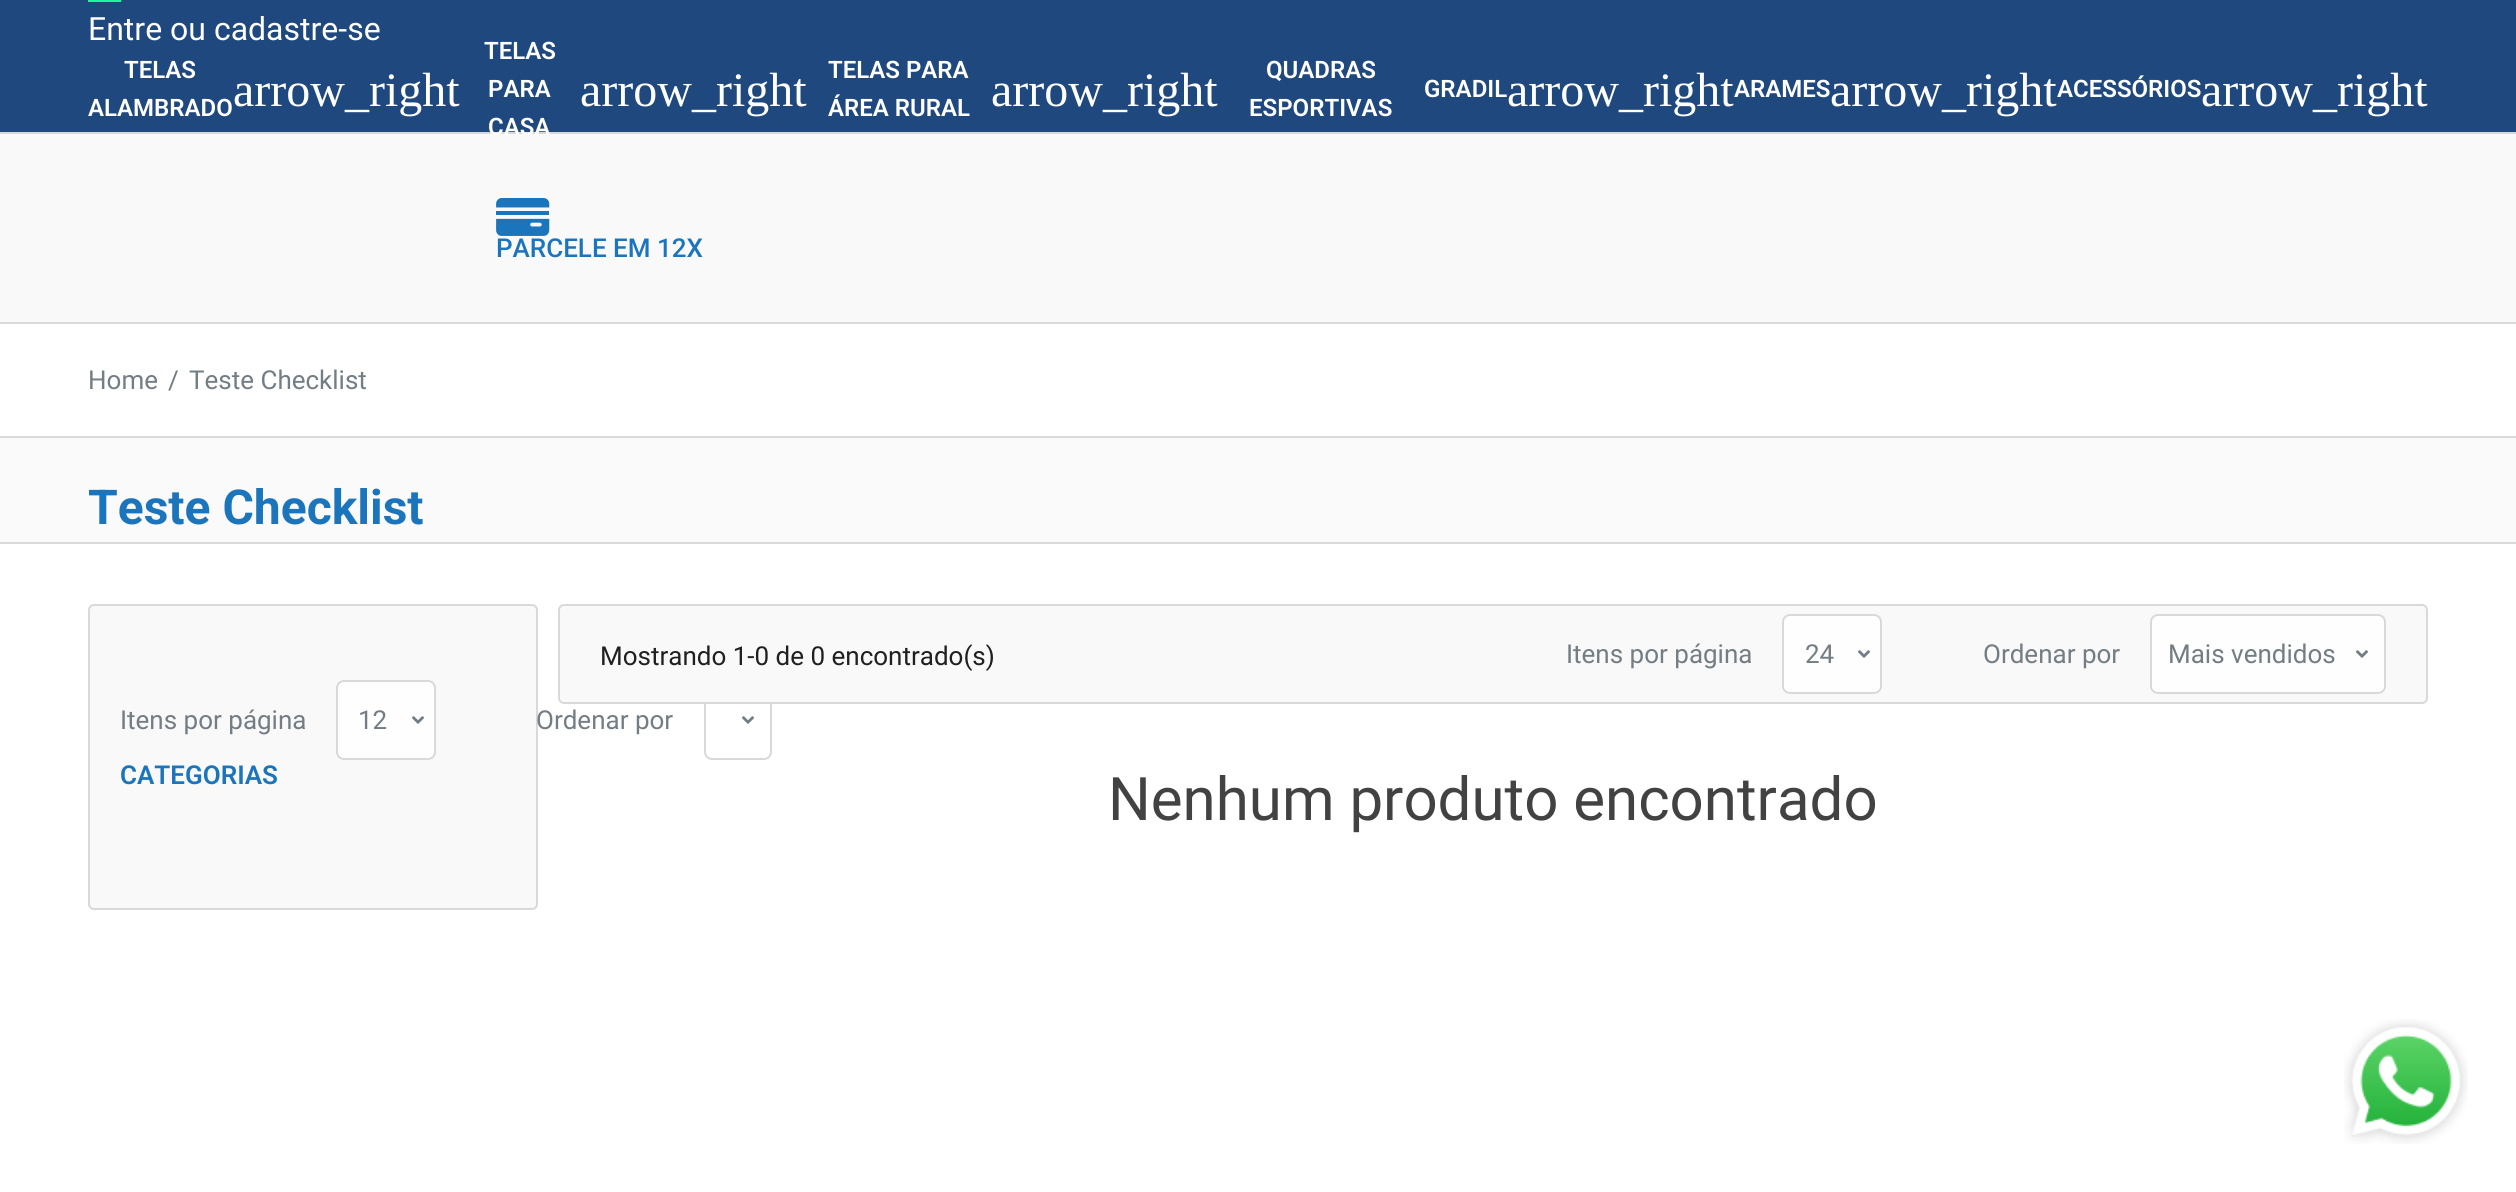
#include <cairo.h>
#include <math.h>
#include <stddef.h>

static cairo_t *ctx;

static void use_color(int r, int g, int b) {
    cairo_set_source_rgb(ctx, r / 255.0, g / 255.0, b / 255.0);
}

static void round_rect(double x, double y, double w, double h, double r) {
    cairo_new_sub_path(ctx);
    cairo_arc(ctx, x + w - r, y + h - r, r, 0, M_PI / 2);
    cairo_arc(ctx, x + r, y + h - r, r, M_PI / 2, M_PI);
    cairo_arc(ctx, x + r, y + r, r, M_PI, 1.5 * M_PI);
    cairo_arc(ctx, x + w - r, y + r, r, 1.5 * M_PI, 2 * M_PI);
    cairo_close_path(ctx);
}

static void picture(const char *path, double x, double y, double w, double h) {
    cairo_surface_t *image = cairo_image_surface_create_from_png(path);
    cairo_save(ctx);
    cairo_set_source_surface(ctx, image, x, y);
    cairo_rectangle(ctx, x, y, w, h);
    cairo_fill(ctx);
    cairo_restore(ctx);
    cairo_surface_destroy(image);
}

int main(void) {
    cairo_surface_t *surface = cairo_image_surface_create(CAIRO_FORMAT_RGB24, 2516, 1192);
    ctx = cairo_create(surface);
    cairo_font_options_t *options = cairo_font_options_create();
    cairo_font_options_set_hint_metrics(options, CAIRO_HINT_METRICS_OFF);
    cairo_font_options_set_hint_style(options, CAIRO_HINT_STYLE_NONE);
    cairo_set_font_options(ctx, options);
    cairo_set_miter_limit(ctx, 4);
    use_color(255, 255, 255);
    cairo_paint(ctx);
    use_color(31, 72, 126);
    cairo_rectangle(ctx, 0, 0, 2516, 132);
    cairo_fill(ctx);
    picture("img1.png", 88, 0, 34, 2);
    cairo_select_font_face(ctx, "Roboto", CAIRO_FONT_SLANT_NORMAL, CAIRO_FONT_WEIGHT_NORMAL);
    cairo_set_font_size(ctx, 32);
    use_color(255, 255, 255);
    cairo_move_to(ctx, 88, 40);
    cairo_show_text(ctx, "Entre ou cadastre-se");
    cairo_select_font_face(ctx, "Roboto SemiBold", CAIRO_FONT_SLANT_NORMAL, CAIRO_FONT_WEIGHT_NORMAL);
    cairo_set_font_size(ctx, 24);
    cairo_move_to(ctx, 124, 78);
    cairo_show_text(ctx, "TELAS");
    cairo_move_to(ctx, 88, 116);
    cairo_show_text(ctx, "ALAMBRADO");
    cairo_select_font_face(ctx, "Liberation Serif", CAIRO_FONT_SLANT_NORMAL, CAIRO_FONT_WEIGHT_NORMAL);
    cairo_set_font_size(ctx, 48);
    cairo_move_to(ctx, 233, 106);
    cairo_show_text(ctx, "arrow_right");
    cairo_select_font_face(ctx, "Roboto SemiBold", CAIRO_FONT_SLANT_NORMAL, CAIRO_FONT_WEIGHT_NORMAL);
    cairo_set_font_size(ctx, 24);
    cairo_move_to(ctx, 484, 59);
    cairo_show_text(ctx, "TELAS");
    cairo_move_to(ctx, 488, 97);
    cairo_show_text(ctx, "PARA");
    use_color(249, 249, 249);
    cairo_rectangle(ctx, 0, 134, 2516, 188);
    cairo_fill(ctx);
    use_color(217, 217, 217);
    cairo_rectangle(ctx, 0, 132, 2516, 2);
    cairo_fill(ctx);
    use_color(255, 255, 255);
    cairo_move_to(ctx, 488, 135);
    cairo_show_text(ctx, "CASA");
    cairo_select_font_face(ctx, "Liberation Serif", CAIRO_FONT_SLANT_NORMAL, CAIRO_FONT_WEIGHT_NORMAL);
    cairo_set_font_size(ctx, 48);
    cairo_move_to(ctx, 580, 106);
    cairo_show_text(ctx, "arrow_right");
    cairo_select_font_face(ctx, "Roboto SemiBold", CAIRO_FONT_SLANT_NORMAL, CAIRO_FONT_WEIGHT_NORMAL);
    cairo_set_font_size(ctx, 24);
    cairo_move_to(ctx, 828, 78);
    cairo_show_text(ctx, "TELAS PARA");
    cairo_move_to(ctx, 828, 116);
    cairo_show_text(ctx, "ÁREA RURAL");
    cairo_select_font_face(ctx, "Liberation Serif", CAIRO_FONT_SLANT_NORMAL, CAIRO_FONT_WEIGHT_NORMAL);
    cairo_set_font_size(ctx, 48);
    cairo_move_to(ctx, 991, 106);
    cairo_show_text(ctx, "arrow_right");
    cairo_select_font_face(ctx, "Roboto SemiBold", CAIRO_FONT_SLANT_NORMAL, CAIRO_FONT_WEIGHT_NORMAL);
    cairo_set_font_size(ctx, 24);
    cairo_move_to(ctx, 1266, 78);
    cairo_show_text(ctx, "QUADRAS");
    cairo_move_to(ctx, 1249, 116);
    cairo_show_text(ctx, "ESPORTIVAS");
    cairo_move_to(ctx, 1424, 97);
    cairo_show_text(ctx, "GRADIL");
    cairo_select_font_face(ctx, "Liberation Serif", CAIRO_FONT_SLANT_NORMAL, CAIRO_FONT_WEIGHT_NORMAL);
    cairo_set_font_size(ctx, 48);
    cairo_move_to(ctx, 1507, 106);
    cairo_show_text(ctx, "arrow_right");
    cairo_select_font_face(ctx, "Roboto SemiBold", CAIRO_FONT_SLANT_NORMAL, CAIRO_FONT_WEIGHT_NORMAL);
    cairo_set_font_size(ctx, 24);
    cairo_move_to(ctx, 1734, 97);
    cairo_show_text(ctx, "ARAMES");
    cairo_select_font_face(ctx, "Liberation Serif", CAIRO_FONT_SLANT_NORMAL, CAIRO_FONT_WEIGHT_NORMAL);
    cairo_set_font_size(ctx, 48);
    cairo_move_to(ctx, 1830, 106);
    cairo_show_text(ctx, "arrow_right");
    cairo_select_font_face(ctx, "Roboto SemiBold", CAIRO_FONT_SLANT_NORMAL, CAIRO_FONT_WEIGHT_NORMAL);
    cairo_set_font_size(ctx, 24);
    cairo_move_to(ctx, 2057, 97);
    cairo_show_text(ctx, "ACESSÓRIOS");
    cairo_select_font_face(ctx, "Liberation Serif", CAIRO_FONT_SLANT_NORMAL, CAIRO_FONT_WEIGHT_NORMAL);
    cairo_set_font_size(ctx, 48);
    cairo_move_to(ctx, 2201, 106);
    cairo_show_text(ctx, "arrow_right");
    use_color(217, 217, 217);
    cairo_rectangle(ctx, 0, 322, 2516, 2);
    cairo_fill(ctx);
    picture("img2.png", 496, 198, 54, 38);
    cairo_select_font_face(ctx, "Roboto Medium", CAIRO_FONT_SLANT_NORMAL, CAIRO_FONT_WEIGHT_NORMAL);
    cairo_set_font_size(ctx, 26);
    use_color(27, 117, 188);
    cairo_move_to(ctx, 496, 257);
    cairo_show_text(ctx, "PARCELE EM 12X");
    cairo_select_font_face(ctx, "Roboto", CAIRO_FONT_SLANT_NORMAL, CAIRO_FONT_WEIGHT_NORMAL);
    use_color(114, 125, 132);
    cairo_move_to(ctx, 88, 389);
    cairo_show_text(ctx, "Home");
    cairo_move_to(ctx, 168, 389);
    cairo_show_text(ctx, "/");
    cairo_move_to(ctx, 189, 389);
    cairo_show_text(ctx, "Teste Checklist");
    use_color(250, 250, 250);
    cairo_rectangle(ctx, 0, 438, 2516, 104);
    cairo_fill(ctx);
    use_color(217, 217, 217);
    cairo_rectangle(ctx, 0, 436, 2516, 2);
    cairo_fill(ctx);
    cairo_rectangle(ctx, 0, 542, 2516, 2);
    cairo_fill(ctx);
    cairo_select_font_face(ctx, "Roboto", CAIRO_FONT_SLANT_NORMAL, CAIRO_FONT_WEIGHT_BOLD);
    cairo_set_font_size(ctx, 48);
    use_color(27, 117, 188);
    cairo_move_to(ctx, 88, 524);
    cairo_show_text(ctx, "Teste Checklist");
    use_color(249, 249, 249);
    round_rect(89, 605, 448, 304, 5);
    cairo_fill_preserve(ctx);
    use_color(217, 217, 217);
    cairo_stroke(ctx);
    cairo_select_font_face(ctx, "Roboto", CAIRO_FONT_SLANT_NORMAL, CAIRO_FONT_WEIGHT_NORMAL);
    cairo_set_font_size(ctx, 26);
    use_color(114, 125, 132);
    cairo_move_to(ctx, 120, 729);
    cairo_show_text(ctx, "Itens por página");
    use_color(254, 254, 254);
    round_rect(336, 680, 100, 80, 8);
    cairo_fill(ctx);
    picture("img3.png", 412, 716, 12, 8);
    round_rect(337, 681, 98, 78, 7);
    use_color(217, 217, 217);
    cairo_stroke(ctx);
    use_color(114, 125, 132);
    cairo_move_to(ctx, 358, 729);
    cairo_show_text(ctx, "12");
    cairo_move_to(ctx, 536, 729);
    cairo_show_text(ctx, "Ordenar por");
    picture("img4.png", 742, 716, 12, 8);
    round_rect(705, 681, 66, 78, 7);
    use_color(217, 217, 217);
    cairo_stroke(ctx);
    cairo_select_font_face(ctx, "Roboto SemiBold", CAIRO_FONT_SLANT_NORMAL, CAIRO_FONT_WEIGHT_NORMAL);
    use_color(27, 117, 188);
    cairo_move_to(ctx, 120, 784);
    cairo_show_text(ctx, "CATEGORIAS");
    use_color(249, 249, 249);
    round_rect(559, 605, 1868, 98, 5);
    cairo_fill_preserve(ctx);
    use_color(217, 217, 217);
    cairo_stroke(ctx);
    cairo_select_font_face(ctx, "Roboto", CAIRO_FONT_SLANT_NORMAL, CAIRO_FONT_WEIGHT_NORMAL);
    use_color(32, 32, 32);
    cairo_move_to(ctx, 600, 665);
    cairo_show_text(ctx, "Mostrando 1-0 de 0 encontrado(s)");
    use_color(114, 125, 132);
    cairo_move_to(ctx, 1566, 663);
    cairo_show_text(ctx, "Itens por página");
    use_color(254, 254, 254);
    round_rect(1782, 614, 100, 80, 8);
    cairo_fill(ctx);
    picture("img3.png", 1858, 650, 12, 8);
    round_rect(1783, 615, 98, 78, 7);
    use_color(217, 217, 217);
    cairo_stroke(ctx);
    use_color(114, 125, 132);
    cairo_move_to(ctx, 1805, 663);
    cairo_show_text(ctx, "24");
    cairo_move_to(ctx, 1983, 663);
    cairo_show_text(ctx, "Ordenar por");
    use_color(254, 254, 254);
    round_rect(2150, 614, 236, 80, 8);
    cairo_fill(ctx);
    picture("img3.png", 2356, 650, 12, 8);
    round_rect(2151, 615, 234, 78, 7);
    use_color(217, 217, 217);
    cairo_stroke(ctx);
    use_color(114, 125, 132);
    cairo_move_to(ctx, 2168, 663);
    cairo_show_text(ctx, "Mais vendidos");
    cairo_set_font_size(ctx, 60);
    use_color(66, 66, 66);
    cairo_move_to(ctx, 1108, 820);
    cairo_show_text(ctx, "Nenhum produto encontrado");
    picture("img5.png", 2344, 1019, 124, 125);
    cairo_surface_write_to_png(surface, "result.png");
    cairo_font_options_destroy(options);
    cairo_destroy(ctx);
    cairo_surface_destroy(surface);
    return 0;
}
